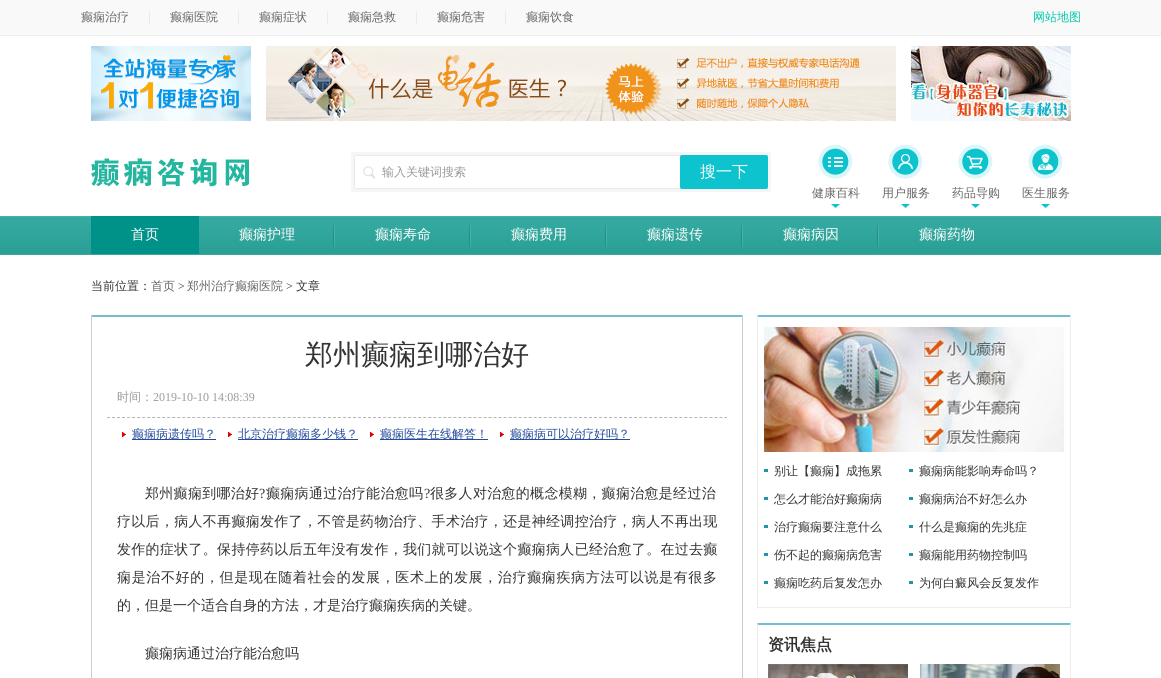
#include <cairo.h>
#include <math.h>
#include <stddef.h>

static cairo_t *ctx;

static void use_color(int r, int g, int b) {
    cairo_set_source_rgb(ctx, r / 255.0, g / 255.0, b / 255.0);
}

static void spaced_text(double x, double y, const char *s, double letter, double word) {
    cairo_move_to(ctx, x, y);
    while (*s) {
        char ch[5] = {0};
        int n = 0;
        do ch[n++] = *s++; while ((*s & 0xC0) == 0x80);
        cairo_show_text(ctx, ch);
        cairo_rel_move_to(ctx, letter + word * (*ch == ' '), 0);
    }
}

static void round_rect(double x, double y, double w, double h, double r) {
    cairo_new_sub_path(ctx);
    cairo_arc(ctx, x + w - r, y + h - r, r, 0, M_PI / 2);
    cairo_arc(ctx, x + r, y + h - r, r, M_PI / 2, M_PI);
    cairo_arc(ctx, x + r, y + r, r, M_PI, 1.5 * M_PI);
    cairo_arc(ctx, x + w - r, y + r, r, 1.5 * M_PI, 2 * M_PI);
    cairo_close_path(ctx);
}

static void picture(const char *path, double x, double y, double w, double h) {
    cairo_surface_t *image = cairo_image_surface_create_from_png(path);
    cairo_save(ctx);
    cairo_set_source_surface(ctx, image, x, y);
    cairo_rectangle(ctx, x, y, w, h);
    cairo_fill(ctx);
    cairo_restore(ctx);
    cairo_surface_destroy(image);
}

int main(void) {
    cairo_surface_t *surface = cairo_image_surface_create(CAIRO_FORMAT_RGB24, 1161, 678);
    ctx = cairo_create(surface);
    cairo_font_options_t *options = cairo_font_options_create();
    cairo_font_options_set_hint_metrics(options, CAIRO_HINT_METRICS_OFF);
    cairo_font_options_set_hint_style(options, CAIRO_HINT_STYLE_NONE);
    cairo_set_font_options(ctx, options);
    cairo_set_miter_limit(ctx, 4);
    use_color(255, 255, 255);
    cairo_paint(ctx);
    use_color(249, 249, 249);
    cairo_rectangle(ctx, 0, 0, 1161, 35);
    cairo_fill(ctx);
    use_color(238, 238, 238);
    cairo_rectangle(ctx, 0, 35, 1161, 1);
    cairo_fill(ctx);
    cairo_select_font_face(ctx, "WenQuanYi Zen Hei Medium", CAIRO_FONT_SLANT_NORMAL, CAIRO_FONT_WEIGHT_NORMAL);
    cairo_set_font_size(ctx, 12);
    use_color(102, 102, 102);
    cairo_move_to(ctx, 81, 21);
    cairo_show_text(ctx, "癫痫治疗");
    use_color(234, 234, 234);
    cairo_rectangle(ctx, 149, 11, 1, 13);
    cairo_fill(ctx);
    use_color(102, 102, 102);
    cairo_move_to(ctx, 170, 21);
    cairo_show_text(ctx, "癫痫医院");
    use_color(234, 234, 234);
    cairo_rectangle(ctx, 238, 11, 1, 13);
    cairo_fill(ctx);
    use_color(102, 102, 102);
    cairo_move_to(ctx, 259, 21);
    cairo_show_text(ctx, "癫痫症状");
    use_color(234, 234, 234);
    cairo_rectangle(ctx, 327, 11, 1, 13);
    cairo_fill(ctx);
    use_color(102, 102, 102);
    cairo_move_to(ctx, 348, 21);
    cairo_show_text(ctx, "癫痫急救");
    use_color(234, 234, 234);
    cairo_rectangle(ctx, 416, 11, 1, 13);
    cairo_fill(ctx);
    use_color(102, 102, 102);
    cairo_move_to(ctx, 437, 21);
    cairo_show_text(ctx, "癫痫危害");
    use_color(234, 234, 234);
    cairo_rectangle(ctx, 505, 11, 1, 13);
    cairo_fill(ctx);
    use_color(102, 102, 102);
    cairo_move_to(ctx, 526, 21);
    cairo_show_text(ctx, "癫痫饮食");
    use_color(0, 200, 170);
    cairo_move_to(ctx, 1033, 21);
    cairo_show_text(ctx, "网站地图");
    picture("img1.png", 91, 46, 160, 75);
    picture("img2.png", 266, 46, 630, 75);
    picture("img3.png", 911, 46, 160, 75);
    picture("img4.png", 91, 158, 158, 29);
    use_color(246, 246, 246);
    round_rect(351, 152, 420, 40, 2);
    cairo_fill(ctx);
    round_rect(354.5, 155.5, 413, 33, 1.5);
    use_color(234, 234, 234);
    cairo_set_line_width(ctx, 1);
    cairo_stroke(ctx);
    use_color(255, 255, 255);
    cairo_rectangle(ctx, 355, 156, 326, 32);
    cairo_fill(ctx);
    picture("img5.png", 363, 166, 12, 13);
    use_color(154, 154, 154);
    cairo_move_to(ctx, 382, 176);
    cairo_show_text(ctx, "输入关键词搜索");
    use_color(13, 195, 206);
    round_rect(680, 155, 88, 34, 2);
    cairo_fill(ctx);
    cairo_set_font_size(ctx, 16);
    use_color(255, 255, 255);
    cairo_move_to(ctx, 700, 177);
    cairo_show_text(ctx, "搜一下");
    picture("img6.png", 818, 144, 35, 35);
    cairo_set_font_size(ctx, 12);
    use_color(102, 102, 102);
    cairo_move_to(ctx, 812, 197);
    cairo_show_text(ctx, "健康百科");
    picture("img7.png", 831, 204, 9, 4);
    picture("img8.png", 888, 144, 35, 35);
    cairo_move_to(ctx, 882, 197);
    cairo_show_text(ctx, "用户服务");
    picture("img7.png", 901, 204, 9, 4);
    picture("img9.png", 958, 144, 35, 35);
    cairo_move_to(ctx, 952, 197);
    cairo_show_text(ctx, "药品导购");
    picture("img7.png", 971, 204, 9, 4);
    picture("img10.png", 1028, 144, 35, 35);
    cairo_move_to(ctx, 1022, 197);
    cairo_show_text(ctx, "医生服务");
    picture("img7.png", 1041, 204, 9, 4);
    picture("img11.png", 0, 216, 1161, 39);
    use_color(0, 146, 137);
    cairo_rectangle(ctx, 91, 216, 108, 38);
    cairo_fill(ctx);
    cairo_set_font_size(ctx, 14);
    use_color(255, 255, 255);
    cairo_move_to(ctx, 131, 239);
    cairo_show_text(ctx, "首页");
    picture("img12.png", 333, 216, 2, 38);
    cairo_move_to(ctx, 239, 239);
    cairo_show_text(ctx, "癫痫护理");
    picture("img12.png", 469, 216, 2, 38);
    cairo_move_to(ctx, 375, 239);
    cairo_show_text(ctx, "癫痫寿命");
    picture("img12.png", 605, 216, 2, 38);
    cairo_move_to(ctx, 511, 239);
    cairo_show_text(ctx, "癫痫费用");
    picture("img12.png", 741, 216, 2, 38);
    cairo_move_to(ctx, 647, 239);
    cairo_show_text(ctx, "癫痫遗传");
    picture("img12.png", 877, 216, 2, 38);
    cairo_move_to(ctx, 783, 239);
    cairo_show_text(ctx, "癫痫病因");
    cairo_move_to(ctx, 919, 239);
    cairo_show_text(ctx, "癫痫药物");
    cairo_set_font_size(ctx, 12);
    use_color(51, 51, 51);
    cairo_move_to(ctx, 91, 290);
    cairo_show_text(ctx, "当前位置：");
    use_color(102, 102, 102);
    cairo_move_to(ctx, 151, 290);
    cairo_show_text(ctx, "首页");
    cairo_select_font_face(ctx, "Liberation Serif", CAIRO_FONT_SLANT_NORMAL, CAIRO_FONT_WEIGHT_NORMAL);
    use_color(51, 51, 51);
    cairo_move_to(ctx, 178, 290);
    cairo_show_text(ctx, ">");
    cairo_select_font_face(ctx, "WenQuanYi Zen Hei Medium", CAIRO_FONT_SLANT_NORMAL, CAIRO_FONT_WEIGHT_NORMAL);
    use_color(102, 102, 102);
    cairo_move_to(ctx, 187, 290);
    cairo_show_text(ctx, "郑州治疗癫痫医院");
    cairo_select_font_face(ctx, "Liberation Serif", CAIRO_FONT_SLANT_NORMAL, CAIRO_FONT_WEIGHT_NORMAL);
    use_color(51, 51, 51);
    cairo_move_to(ctx, 286, 290);
    cairo_show_text(ctx, ">");
    cairo_select_font_face(ctx, "WenQuanYi Zen Hei Medium", CAIRO_FONT_SLANT_NORMAL, CAIRO_FONT_WEIGHT_NORMAL);
    cairo_move_to(ctx, 296, 290);
    cairo_show_text(ctx, "文章");
    use_color(117, 190, 209);
    cairo_new_path(ctx);
    cairo_move_to(ctx, 91, 315);
    cairo_line_to(ctx, 743, 315);
    cairo_line_to(ctx, 742, 317);
    cairo_line_to(ctx, 92, 317);
    cairo_close_path(ctx);
    cairo_fill(ctx);
    use_color(204, 204, 204);
    cairo_new_path(ctx);
    cairo_move_to(ctx, 743, 315);
    cairo_line_to(ctx, 743, 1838);
    cairo_line_to(ctx, 742, 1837);
    cairo_line_to(ctx, 742, 317);
    cairo_close_path(ctx);
    cairo_fill(ctx);
    cairo_new_path(ctx);
    cairo_move_to(ctx, 91, 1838);
    cairo_line_to(ctx, 91, 315);
    cairo_line_to(ctx, 92, 317);
    cairo_line_to(ctx, 92, 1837);
    cairo_close_path(ctx);
    cairo_fill(ctx);
    cairo_new_path(ctx);
    cairo_move_to(ctx, 107, 417.5);
    cairo_line_to(ctx, 727, 417.5);
    use_color(181, 181, 181);
    cairo_set_dash(ctx, (double[]){3, 2.02}, 2, 0);
    cairo_stroke(ctx);
    cairo_set_font_size(ctx, 28);
    use_color(51, 51, 51);
    cairo_move_to(ctx, 305, 364);
    cairo_show_text(ctx, "郑州癫痫到哪治好");
    cairo_set_font_size(ctx, 12);
    use_color(154, 154, 154);
    cairo_move_to(ctx, 117, 401);
    cairo_show_text(ctx, "时间：");
    cairo_select_font_face(ctx, "Liberation Serif", CAIRO_FONT_SLANT_NORMAL, CAIRO_FONT_WEIGHT_NORMAL);
    cairo_move_to(ctx, 153, 401);
    cairo_show_text(ctx, "2019-10-10 14:08:39");
    picture("img13.png", 122, 432, 4, 5);
    use_color(36, 76, 157);
    cairo_rectangle(ctx, 132, 439, 84, 1);
    cairo_fill(ctx);
    cairo_select_font_face(ctx, "WenQuanYi Zen Hei Medium", CAIRO_FONT_SLANT_NORMAL, CAIRO_FONT_WEIGHT_NORMAL);
    cairo_move_to(ctx, 132, 438);
    cairo_show_text(ctx, "癫痫病遗传吗？");
    picture("img13.png", 228, 432, 4, 5);
    cairo_rectangle(ctx, 238, 439, 120, 1);
    cairo_fill(ctx);
    cairo_move_to(ctx, 238, 438);
    cairo_show_text(ctx, "北京治疗癫痫多少钱？");
    picture("img13.png", 370, 432, 4, 5);
    cairo_rectangle(ctx, 380, 439, 108, 1);
    cairo_fill(ctx);
    cairo_move_to(ctx, 380, 438);
    cairo_show_text(ctx, "癫痫医生在线解答！");
    picture("img13.png", 500, 432, 4, 5);
    cairo_rectangle(ctx, 510, 439, 120, 1);
    cairo_fill(ctx);
    cairo_move_to(ctx, 510, 438);
    cairo_show_text(ctx, "癫痫病可以治疗好吗？");
    cairo_set_font_size(ctx, 14);
    use_color(51, 51, 51);
    spaced_text(145, 498, "郑州癫痫到哪治好", 0.3, 0);
    cairo_select_font_face(ctx, "Liberation Serif", CAIRO_FONT_SLANT_NORMAL, CAIRO_FONT_WEIGHT_NORMAL);
    spaced_text(259, 498, "?", 0.3, 0);
    cairo_select_font_face(ctx, "WenQuanYi Zen Hei Medium", CAIRO_FONT_SLANT_NORMAL, CAIRO_FONT_WEIGHT_NORMAL);
    spaced_text(266, 498, "癫痫病通过治疗能治愈吗", 0.3, 0);
    cairo_select_font_face(ctx, "Liberation Serif", CAIRO_FONT_SLANT_NORMAL, CAIRO_FONT_WEIGHT_NORMAL);
    spaced_text(424, 498, "?", 0.3, 0);
    cairo_select_font_face(ctx, "WenQuanYi Zen Hei Medium", CAIRO_FONT_SLANT_NORMAL, CAIRO_FONT_WEIGHT_NORMAL);
    spaced_text(430, 498, "很多人对治愈的概念模糊，癫痫治愈是经过治", 0.3, 0);
    spaced_text(117, 526, "疗以后，病人不再癫痫发作了，不管是药物治疗、手术治疗，还是神经调控治疗，病人不再出现", 0.3, 0);
    spaced_text(117, 554, "发作的症状了。保持停药以后五年没有发作，我们就可以说这个癫痫病人已经治愈了。在过去癫", 0.3, 0);
    spaced_text(117, 582, "痫是治不好的，但是现在随着社会的发展，医术上的发展，治疗癫痫疾病方法可以说是有很多", 0.65, 0);
    cairo_move_to(ctx, 117, 610);
    cairo_show_text(ctx, "的，但是一个适合自身的方法，才是治疗癫痫疾病的关键。");
    cairo_move_to(ctx, 145, 658);
    cairo_show_text(ctx, "癫痫病通过治疗能治愈吗");
    use_color(117, 190, 209);
    cairo_new_path(ctx);
    cairo_move_to(ctx, 757, 315);
    cairo_line_to(ctx, 1071, 315);
    cairo_line_to(ctx, 1070, 317);
    cairo_line_to(ctx, 758, 317);
    cairo_close_path(ctx);
    cairo_fill(ctx);
    use_color(237, 237, 237);
    cairo_new_path(ctx);
    cairo_move_to(ctx, 1071, 315);
    cairo_line_to(ctx, 1071, 608);
    cairo_line_to(ctx, 1070, 607);
    cairo_line_to(ctx, 1070, 317);
    cairo_close_path(ctx);
    cairo_fill(ctx);
    cairo_rectangle(ctx, 757, 607, 314, 1);
    cairo_fill(ctx);
    cairo_new_path(ctx);
    cairo_move_to(ctx, 757, 608);
    cairo_line_to(ctx, 757, 315);
    cairo_line_to(ctx, 758, 317);
    cairo_line_to(ctx, 758, 607);
    cairo_close_path(ctx);
    cairo_fill(ctx);
    picture("img14.png", 764, 327, 300, 125);
    use_color(33, 148, 173);
    cairo_rectangle(ctx, 764, 469, 4, 3);
    cairo_fill(ctx);
    cairo_set_font_size(ctx, 12);
    use_color(51, 51, 51);
    cairo_move_to(ctx, 774, 475);
    cairo_show_text(ctx, "别让【癫痫】成拖累");
    use_color(33, 148, 173);
    cairo_rectangle(ctx, 909, 469, 4, 3);
    cairo_fill(ctx);
    use_color(51, 51, 51);
    cairo_move_to(ctx, 919, 475);
    cairo_show_text(ctx, "癫痫病能影响寿命吗？");
    use_color(33, 148, 173);
    cairo_rectangle(ctx, 764, 497, 4, 3);
    cairo_fill(ctx);
    use_color(51, 51, 51);
    cairo_move_to(ctx, 774, 503);
    cairo_show_text(ctx, "怎么才能治好癫痫病");
    use_color(33, 148, 173);
    cairo_rectangle(ctx, 909, 497, 4, 3);
    cairo_fill(ctx);
    use_color(51, 51, 51);
    cairo_move_to(ctx, 919, 503);
    cairo_show_text(ctx, "癫痫病治不好怎么办");
    use_color(33, 148, 173);
    cairo_rectangle(ctx, 764, 525, 4, 3);
    cairo_fill(ctx);
    use_color(51, 51, 51);
    cairo_move_to(ctx, 774, 531);
    cairo_show_text(ctx, "治疗癫痫要注意什么");
    use_color(33, 148, 173);
    cairo_rectangle(ctx, 909, 525, 4, 3);
    cairo_fill(ctx);
    use_color(51, 51, 51);
    cairo_move_to(ctx, 919, 531);
    cairo_show_text(ctx, "什么是癫痫的先兆症");
    use_color(33, 148, 173);
    cairo_rectangle(ctx, 764, 553, 4, 3);
    cairo_fill(ctx);
    use_color(51, 51, 51);
    cairo_move_to(ctx, 774, 559);
    cairo_show_text(ctx, "伤不起的癫痫病危害");
    use_color(33, 148, 173);
    cairo_rectangle(ctx, 909, 553, 4, 3);
    cairo_fill(ctx);
    use_color(51, 51, 51);
    cairo_move_to(ctx, 919, 559);
    cairo_show_text(ctx, "癫痫能用药物控制吗");
    use_color(33, 148, 173);
    cairo_rectangle(ctx, 764, 581, 4, 3);
    cairo_fill(ctx);
    use_color(51, 51, 51);
    cairo_move_to(ctx, 774, 587);
    cairo_show_text(ctx, "癫痫吃药后复发怎办");
    use_color(33, 148, 173);
    cairo_rectangle(ctx, 909, 581, 4, 3);
    cairo_fill(ctx);
    use_color(51, 51, 51);
    cairo_move_to(ctx, 919, 587);
    cairo_show_text(ctx, "为何白癜风会反复发作");
    use_color(117, 190, 209);
    cairo_new_path(ctx);
    cairo_move_to(ctx, 757, 623);
    cairo_line_to(ctx, 1071, 623);
    cairo_line_to(ctx, 1070, 625);
    cairo_line_to(ctx, 758, 625);
    cairo_close_path(ctx);
    cairo_fill(ctx);
    use_color(237, 237, 237);
    cairo_new_path(ctx);
    cairo_move_to(ctx, 1071, 623);
    cairo_line_to(ctx, 1071, 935);
    cairo_line_to(ctx, 1070, 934);
    cairo_line_to(ctx, 1070, 625);
    cairo_close_path(ctx);
    cairo_fill(ctx);
    cairo_new_path(ctx);
    cairo_move_to(ctx, 757, 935);
    cairo_line_to(ctx, 757, 623);
    cairo_line_to(ctx, 758, 625);
    cairo_line_to(ctx, 758, 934);
    cairo_close_path(ctx);
    cairo_fill(ctx);
    cairo_select_font_face(ctx, "WenQuanYi Zen Hei", CAIRO_FONT_SLANT_NORMAL, CAIRO_FONT_WEIGHT_BOLD);
    cairo_set_font_size(ctx, 16);
    use_color(51, 51, 51);
    cairo_move_to(ctx, 768, 650);
    cairo_show_text(ctx, "资讯焦点");
    picture("img15.png", 768, 664, 140, 14);
    picture("img16.png", 920, 664, 140, 14);
    cairo_surface_write_to_png(surface, "result.png");
    cairo_font_options_destroy(options);
    cairo_destroy(ctx);
    cairo_surface_destroy(surface);
    return 0;
}
